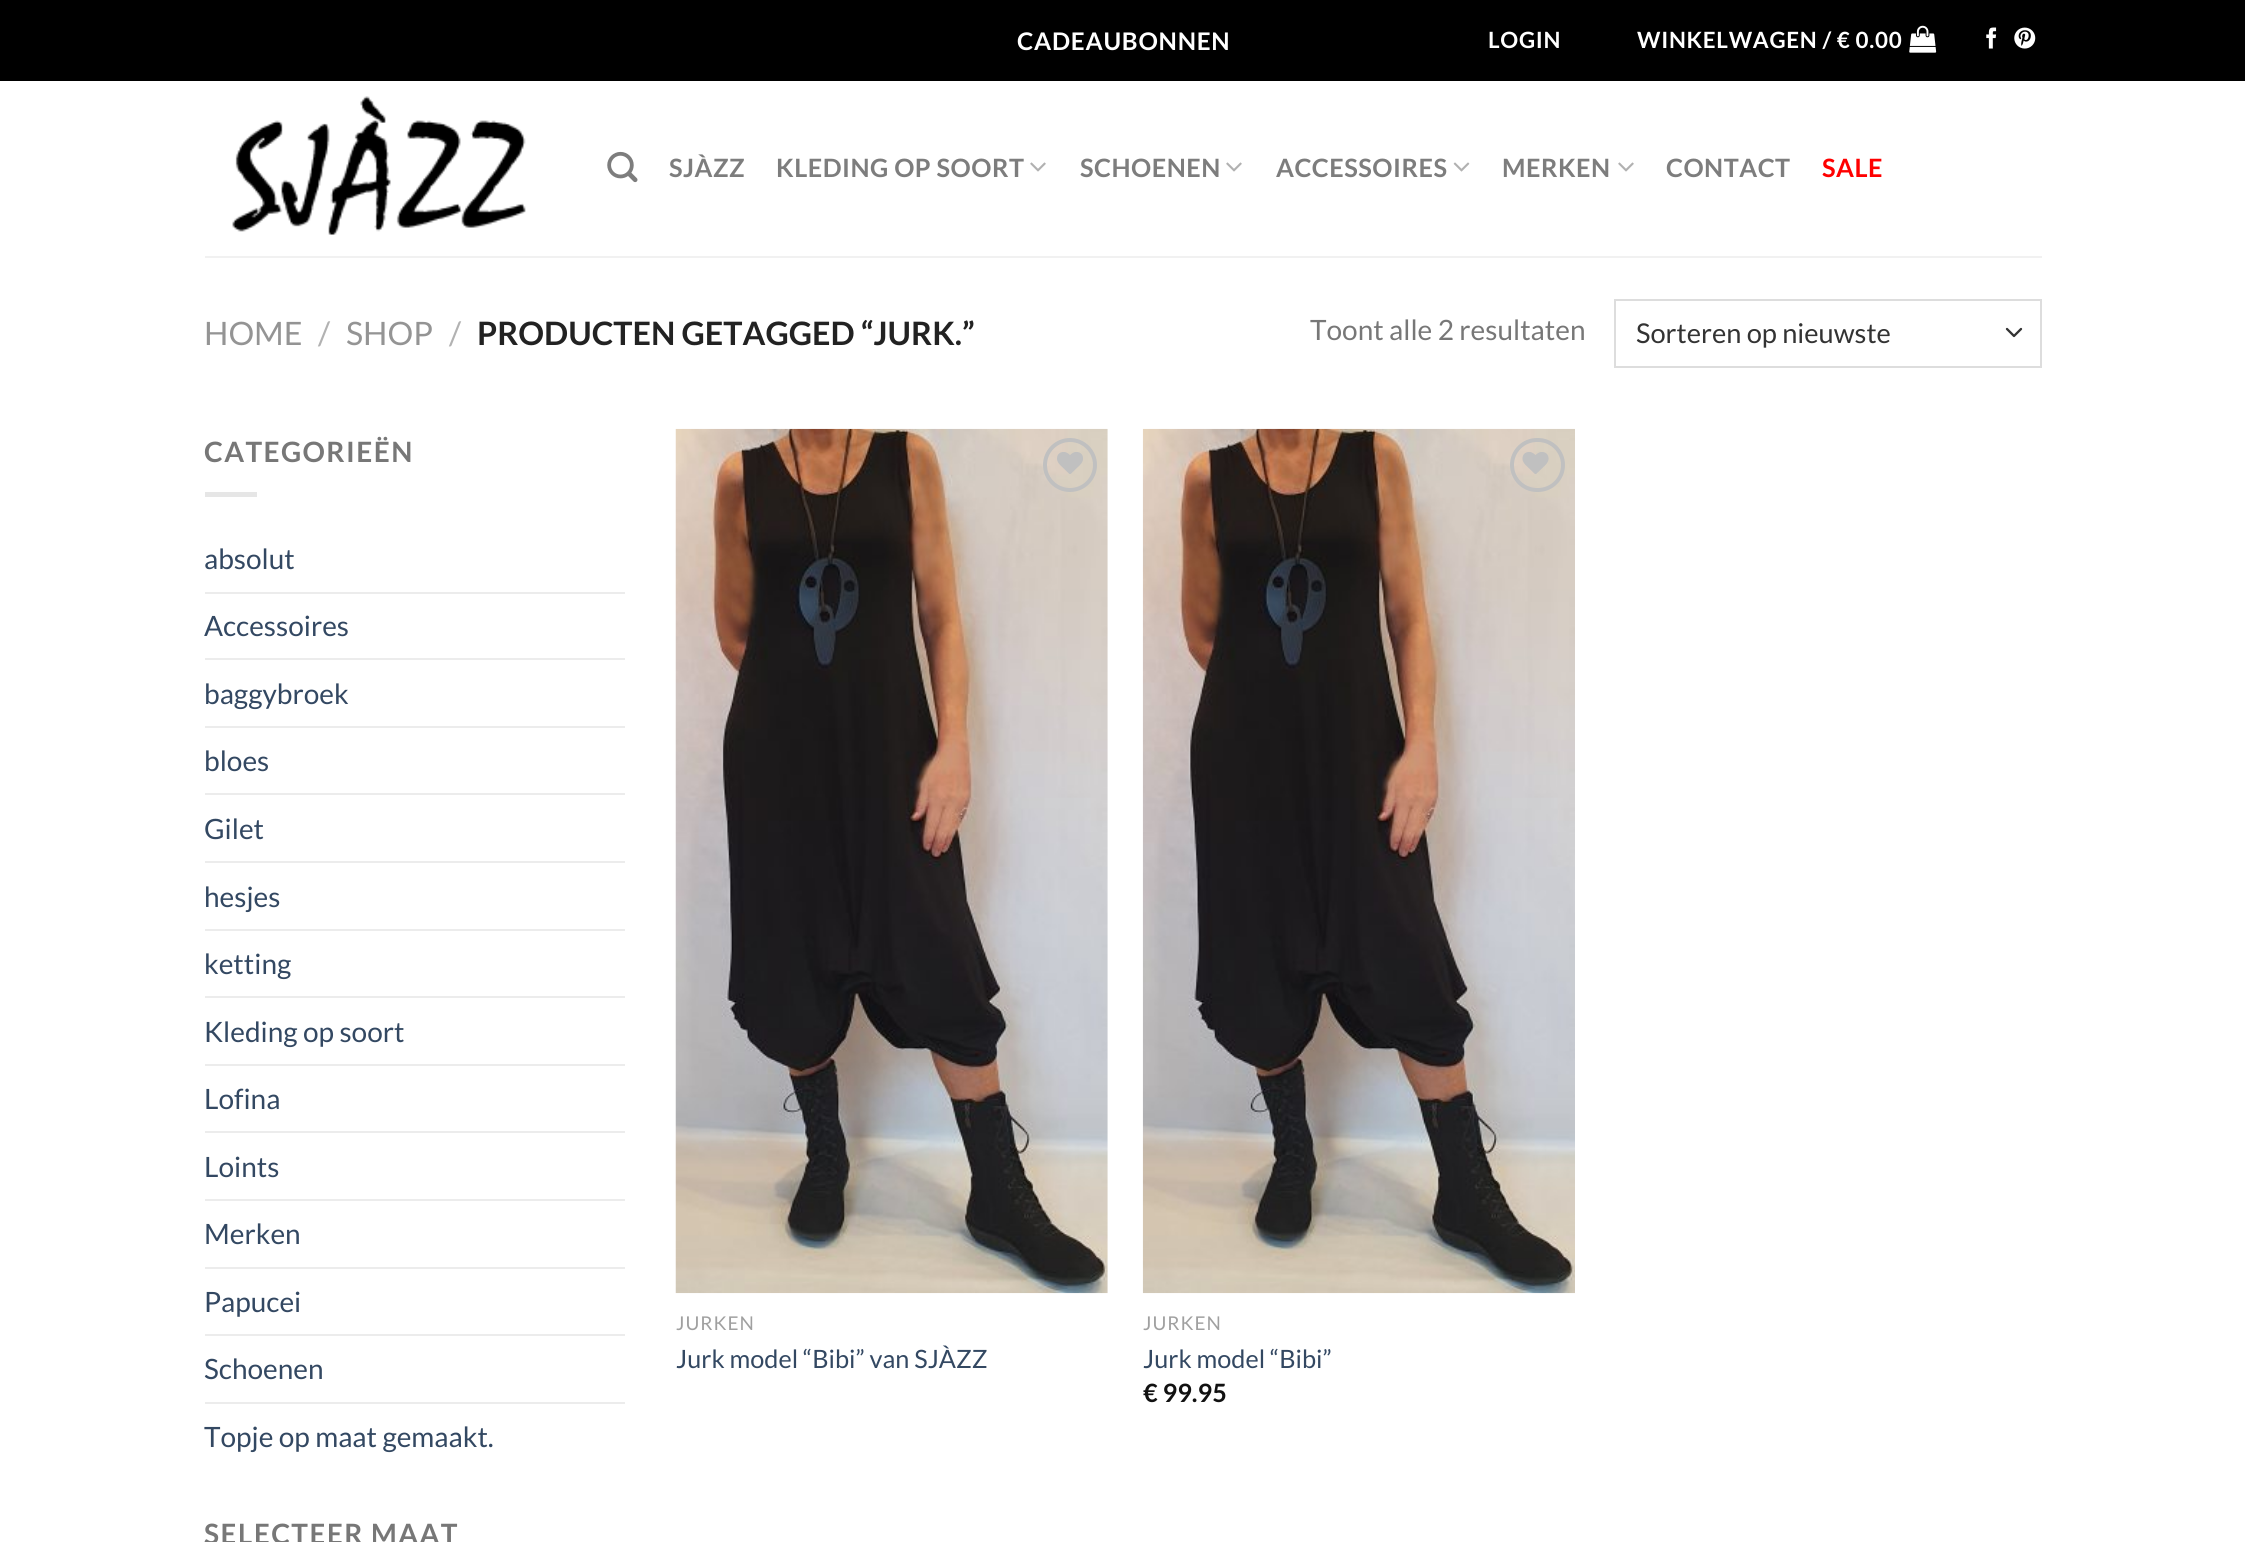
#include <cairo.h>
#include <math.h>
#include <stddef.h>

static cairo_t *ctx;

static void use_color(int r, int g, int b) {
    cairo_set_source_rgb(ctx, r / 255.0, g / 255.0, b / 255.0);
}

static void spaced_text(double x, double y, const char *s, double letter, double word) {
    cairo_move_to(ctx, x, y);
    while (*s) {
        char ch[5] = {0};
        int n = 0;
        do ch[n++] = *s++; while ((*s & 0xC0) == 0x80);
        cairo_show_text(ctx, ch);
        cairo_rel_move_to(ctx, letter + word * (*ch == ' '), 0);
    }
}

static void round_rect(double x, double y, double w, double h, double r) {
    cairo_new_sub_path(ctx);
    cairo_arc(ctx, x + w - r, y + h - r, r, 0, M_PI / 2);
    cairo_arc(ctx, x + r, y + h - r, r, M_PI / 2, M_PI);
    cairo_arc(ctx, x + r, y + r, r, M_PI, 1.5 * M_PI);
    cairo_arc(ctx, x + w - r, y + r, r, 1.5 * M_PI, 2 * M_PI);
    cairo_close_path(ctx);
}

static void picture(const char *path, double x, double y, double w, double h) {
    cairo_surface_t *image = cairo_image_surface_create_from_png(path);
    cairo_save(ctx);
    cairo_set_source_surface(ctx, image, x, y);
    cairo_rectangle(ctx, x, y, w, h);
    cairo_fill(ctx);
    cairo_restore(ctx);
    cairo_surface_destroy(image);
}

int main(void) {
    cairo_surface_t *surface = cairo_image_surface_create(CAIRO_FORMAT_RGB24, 2245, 1542);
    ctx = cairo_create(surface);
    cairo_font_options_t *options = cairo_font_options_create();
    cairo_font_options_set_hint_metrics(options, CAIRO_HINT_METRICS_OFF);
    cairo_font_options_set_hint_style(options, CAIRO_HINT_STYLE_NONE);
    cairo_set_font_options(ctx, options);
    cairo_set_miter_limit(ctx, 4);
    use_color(255, 255, 255);
    cairo_paint(ctx);
    use_color(0, 0, 0);
    cairo_rectangle(ctx, 0, 0, 2245, 81);
    cairo_fill(ctx);
    cairo_select_font_face(ctx, "Lato", CAIRO_FONT_SLANT_NORMAL, CAIRO_FONT_WEIGHT_BOLD);
    cairo_set_font_size(ctx, 24.25);
    use_color(255, 255, 255);
    spaced_text(1017, 50, "CADEAUBONNEN", 0.75, 0);
    cairo_set_font_size(ctx, 22.4);
    spaced_text(1488, 48, "LOGIN", 0.7, 0);
    spaced_text(1637, 48, "WINKELWAGEN / € 0.00", 0.7, 0);
    picture("img1.png", 1909, 25, 28, 28);
    picture("img2.png", 1986, 27, 11, 22);
    picture("img3.png", 2014, 27, 22, 22);
    picture("img4.png", 232, 96, 294, 139);
    picture("img5.png", 607, 151, 31, 32);
    cairo_set_font_size(ctx, 25.25);
    use_color(125, 125, 125);
    spaced_text(669, 177, "SJÀZZ", 0.5, 0);
    spaced_text(776, 177, "KLEDING OP SOORT", 0.5, 0);
    picture("img6.png", 1030, 162, 16, 10);
    spaced_text(1080, 177, "SCHOENEN", 0.5, 0);
    picture("img6.png", 1226, 162, 16, 10);
    spaced_text(1276, 177, "ACCESSOIRES", 0.5, 0);
    picture("img7.png", 1453, 162, 17, 10);
    spaced_text(1502, 177, "MERKEN", 0.5, 0);
    picture("img6.png", 1618, 162, 16, 10);
    spaced_text(1666, 177, "CONTACT", 0.5, 0);
    use_color(255, 0, 0);
    spaced_text(1822, 177, "SALE", 0.5, 0);
    use_color(241, 241, 241);
    cairo_rectangle(ctx, 205, 256, 1837, 2);
    cairo_fill(ctx);
    cairo_select_font_face(ctx, "Lato", CAIRO_FONT_SLANT_NORMAL, CAIRO_FONT_WEIGHT_NORMAL);
    cairo_set_font_size(ctx, 32.25);
    use_color(148, 148, 148);
    cairo_move_to(ctx, 204, 345);
    cairo_show_text(ctx, "HOME");
    use_color(178, 178, 178);
    cairo_move_to(ctx, 318, 345);
    cairo_show_text(ctx, "/");
    use_color(148, 148, 148);
    cairo_move_to(ctx, 346, 345);
    cairo_show_text(ctx, "SHOP");
    use_color(178, 178, 178);
    cairo_move_to(ctx, 449, 345);
    cairo_show_text(ctx, "/");
    cairo_select_font_face(ctx, "Lato", CAIRO_FONT_SLANT_NORMAL, CAIRO_FONT_WEIGHT_BOLD);
    use_color(34, 34, 34);
    cairo_move_to(ctx, 477, 345);
    cairo_show_text(ctx, "PRODUCTEN GETAGGED “JURK.”");
    cairo_select_font_face(ctx, "Lato", CAIRO_FONT_SLANT_NORMAL, CAIRO_FONT_WEIGHT_NORMAL);
    cairo_set_font_size(ctx, 28);
    use_color(119, 119, 119);
    cairo_move_to(ctx, 1310, 340);
    cairo_show_text(ctx, "Toont alle 2 resultaten");
    cairo_new_path(ctx);
    cairo_move_to(ctx, 2007, 329);
    cairo_line_to(ctx, 2014, 336);
    cairo_line_to(ctx, 2021, 329);
    use_color(51, 51, 51);
    cairo_set_line_width(ctx, 2.3);
    cairo_set_line_cap(ctx, CAIRO_LINE_CAP_ROUND);
    cairo_set_line_join(ctx, CAIRO_LINE_JOIN_ROUND);
    cairo_stroke(ctx);
    cairo_rectangle(ctx, 1615, 300, 426, 67);
    use_color(221, 221, 221);
    cairo_set_line_width(ctx, 2);
    cairo_set_line_cap(ctx, CAIRO_LINE_CAP_BUTT);
    cairo_set_line_join(ctx, CAIRO_LINE_JOIN_MITER);
    cairo_stroke(ctx);
    cairo_set_font_size(ctx, 27.25);
    use_color(51, 51, 51);
    cairo_move_to(ctx, 1636, 343);
    cairo_show_text(ctx, "Sorteren op nieuwste");
    cairo_select_font_face(ctx, "Lato", CAIRO_FONT_SLANT_NORMAL, CAIRO_FONT_WEIGHT_BOLD);
    cairo_set_font_size(ctx, 28);
    use_color(119, 119, 119);
    spaced_text(204, 462, "CATEGORIEËN", 1.4, 0);
    use_color(230, 230, 230);
    cairo_rectangle(ctx, 205, 492, 52, 5);
    cairo_fill(ctx);
    cairo_select_font_face(ctx, "Lato", CAIRO_FONT_SLANT_NORMAL, CAIRO_FONT_WEIGHT_NORMAL);
    use_color(51, 72, 98);
    cairo_move_to(ctx, 204, 569);
    cairo_show_text(ctx, "absolut");
    use_color(236, 236, 236);
    cairo_rectangle(ctx, 205, 592, 420, 2);
    cairo_fill(ctx);
    use_color(51, 72, 98);
    cairo_move_to(ctx, 204, 636);
    cairo_show_text(ctx, "Accessoires");
    use_color(236, 236, 236);
    cairo_rectangle(ctx, 205, 658, 420, 2);
    cairo_fill(ctx);
    use_color(51, 72, 98);
    cairo_move_to(ctx, 204, 704);
    cairo_show_text(ctx, "baggybroek");
    use_color(236, 236, 236);
    cairo_rectangle(ctx, 205, 726, 420, 2);
    cairo_fill(ctx);
    use_color(51, 72, 98);
    cairo_move_to(ctx, 204, 771);
    cairo_show_text(ctx, "bloes");
    use_color(236, 236, 236);
    cairo_rectangle(ctx, 205, 793, 420, 2);
    cairo_fill(ctx);
    use_color(51, 72, 98);
    cairo_move_to(ctx, 204, 839);
    cairo_show_text(ctx, "Gilet");
    use_color(236, 236, 236);
    cairo_rectangle(ctx, 205, 861, 420, 2);
    cairo_fill(ctx);
    use_color(51, 72, 98);
    cairo_move_to(ctx, 204, 907);
    cairo_show_text(ctx, "hesjes");
    use_color(236, 236, 236);
    cairo_rectangle(ctx, 205, 929, 420, 2);
    cairo_fill(ctx);
    use_color(51, 72, 98);
    cairo_move_to(ctx, 204, 974);
    cairo_show_text(ctx, "ketting");
    use_color(236, 236, 236);
    cairo_rectangle(ctx, 205, 996, 420, 2);
    cairo_fill(ctx);
    use_color(51, 72, 98);
    cairo_move_to(ctx, 204, 1042);
    cairo_show_text(ctx, "Kleding op soort");
    use_color(236, 236, 236);
    cairo_rectangle(ctx, 205, 1064, 420, 2);
    cairo_fill(ctx);
    use_color(51, 72, 98);
    cairo_move_to(ctx, 204, 1109);
    cairo_show_text(ctx, "Lofina");
    use_color(236, 236, 236);
    cairo_rectangle(ctx, 205, 1131, 420, 2);
    cairo_fill(ctx);
    use_color(51, 72, 98);
    cairo_move_to(ctx, 204, 1177);
    cairo_show_text(ctx, "Loints");
    use_color(236, 236, 236);
    cairo_rectangle(ctx, 205, 1199, 420, 2);
    cairo_fill(ctx);
    use_color(51, 72, 98);
    cairo_move_to(ctx, 204, 1244);
    cairo_show_text(ctx, "Merken");
    use_color(236, 236, 236);
    cairo_rectangle(ctx, 205, 1267, 420, 2);
    cairo_fill(ctx);
    use_color(51, 72, 98);
    cairo_move_to(ctx, 204, 1312);
    cairo_show_text(ctx, "Papucei");
    use_color(236, 236, 236);
    cairo_rectangle(ctx, 205, 1334, 420, 2);
    cairo_fill(ctx);
    use_color(51, 72, 98);
    cairo_move_to(ctx, 204, 1379);
    cairo_show_text(ctx, "Schoenen");
    use_color(236, 236, 236);
    cairo_rectangle(ctx, 205, 1402, 420, 2);
    cairo_fill(ctx);
    use_color(51, 72, 98);
    cairo_move_to(ctx, 204, 1447);
    cairo_show_text(ctx, "Topje op maat gemaakt.");
    cairo_select_font_face(ctx, "Lato", CAIRO_FONT_SLANT_NORMAL, CAIRO_FONT_WEIGHT_BOLD);
    use_color(119, 119, 119);
    spaced_text(204, 1544, "SELECTEER MAAT", 1.4, 0);
    picture("img8.png", 675, 428, 433, 866);
    cairo_arc(ctx, 1070, 465, 25, 0, 2 * M_PI);
    use_color(192, 192, 192);
    cairo_set_line_width(ctx, 4);
    cairo_stroke(ctx);
    picture("img9.png", 1057, 452, 26, 22);
    cairo_select_font_face(ctx, "Lato", CAIRO_FONT_SLANT_NORMAL, CAIRO_FONT_WEIGHT_NORMAL);
    cairo_set_font_size(ctx, 19);
    use_color(160, 160, 160);
    spaced_text(676, 1330, "JURKEN", 1, 0);
    cairo_set_font_size(ctx, 25.25);
    use_color(51, 72, 98);
    cairo_move_to(ctx, 676, 1368);
    cairo_show_text(ctx, "Jurk model “Bibi” van SJÀZZ");
    picture("img10.png", 1142, 428, 433, 866);
    round_rect(1512, 440, 51, 50, 25);
    use_color(192, 192, 192);
    cairo_stroke(ctx);
    picture("img11.png", 1522, 452, 27, 22);
    cairo_set_font_size(ctx, 19);
    use_color(160, 160, 160);
    spaced_text(1143, 1330, "JURKEN", 1, 0);
    cairo_set_font_size(ctx, 25.25);
    use_color(51, 72, 98);
    cairo_move_to(ctx, 1143, 1368);
    cairo_show_text(ctx, "Jurk model “Bibi”");
    cairo_select_font_face(ctx, "Lato", CAIRO_FONT_SLANT_NORMAL, CAIRO_FONT_WEIGHT_BOLD);
    use_color(17, 17, 17);
    cairo_move_to(ctx, 1143, 1402);
    cairo_show_text(ctx, "€ 99.95");
    cairo_surface_write_to_png(surface, "result.png");
    cairo_font_options_destroy(options);
    cairo_destroy(ctx);
    cairo_surface_destroy(surface);
    return 0;
}
